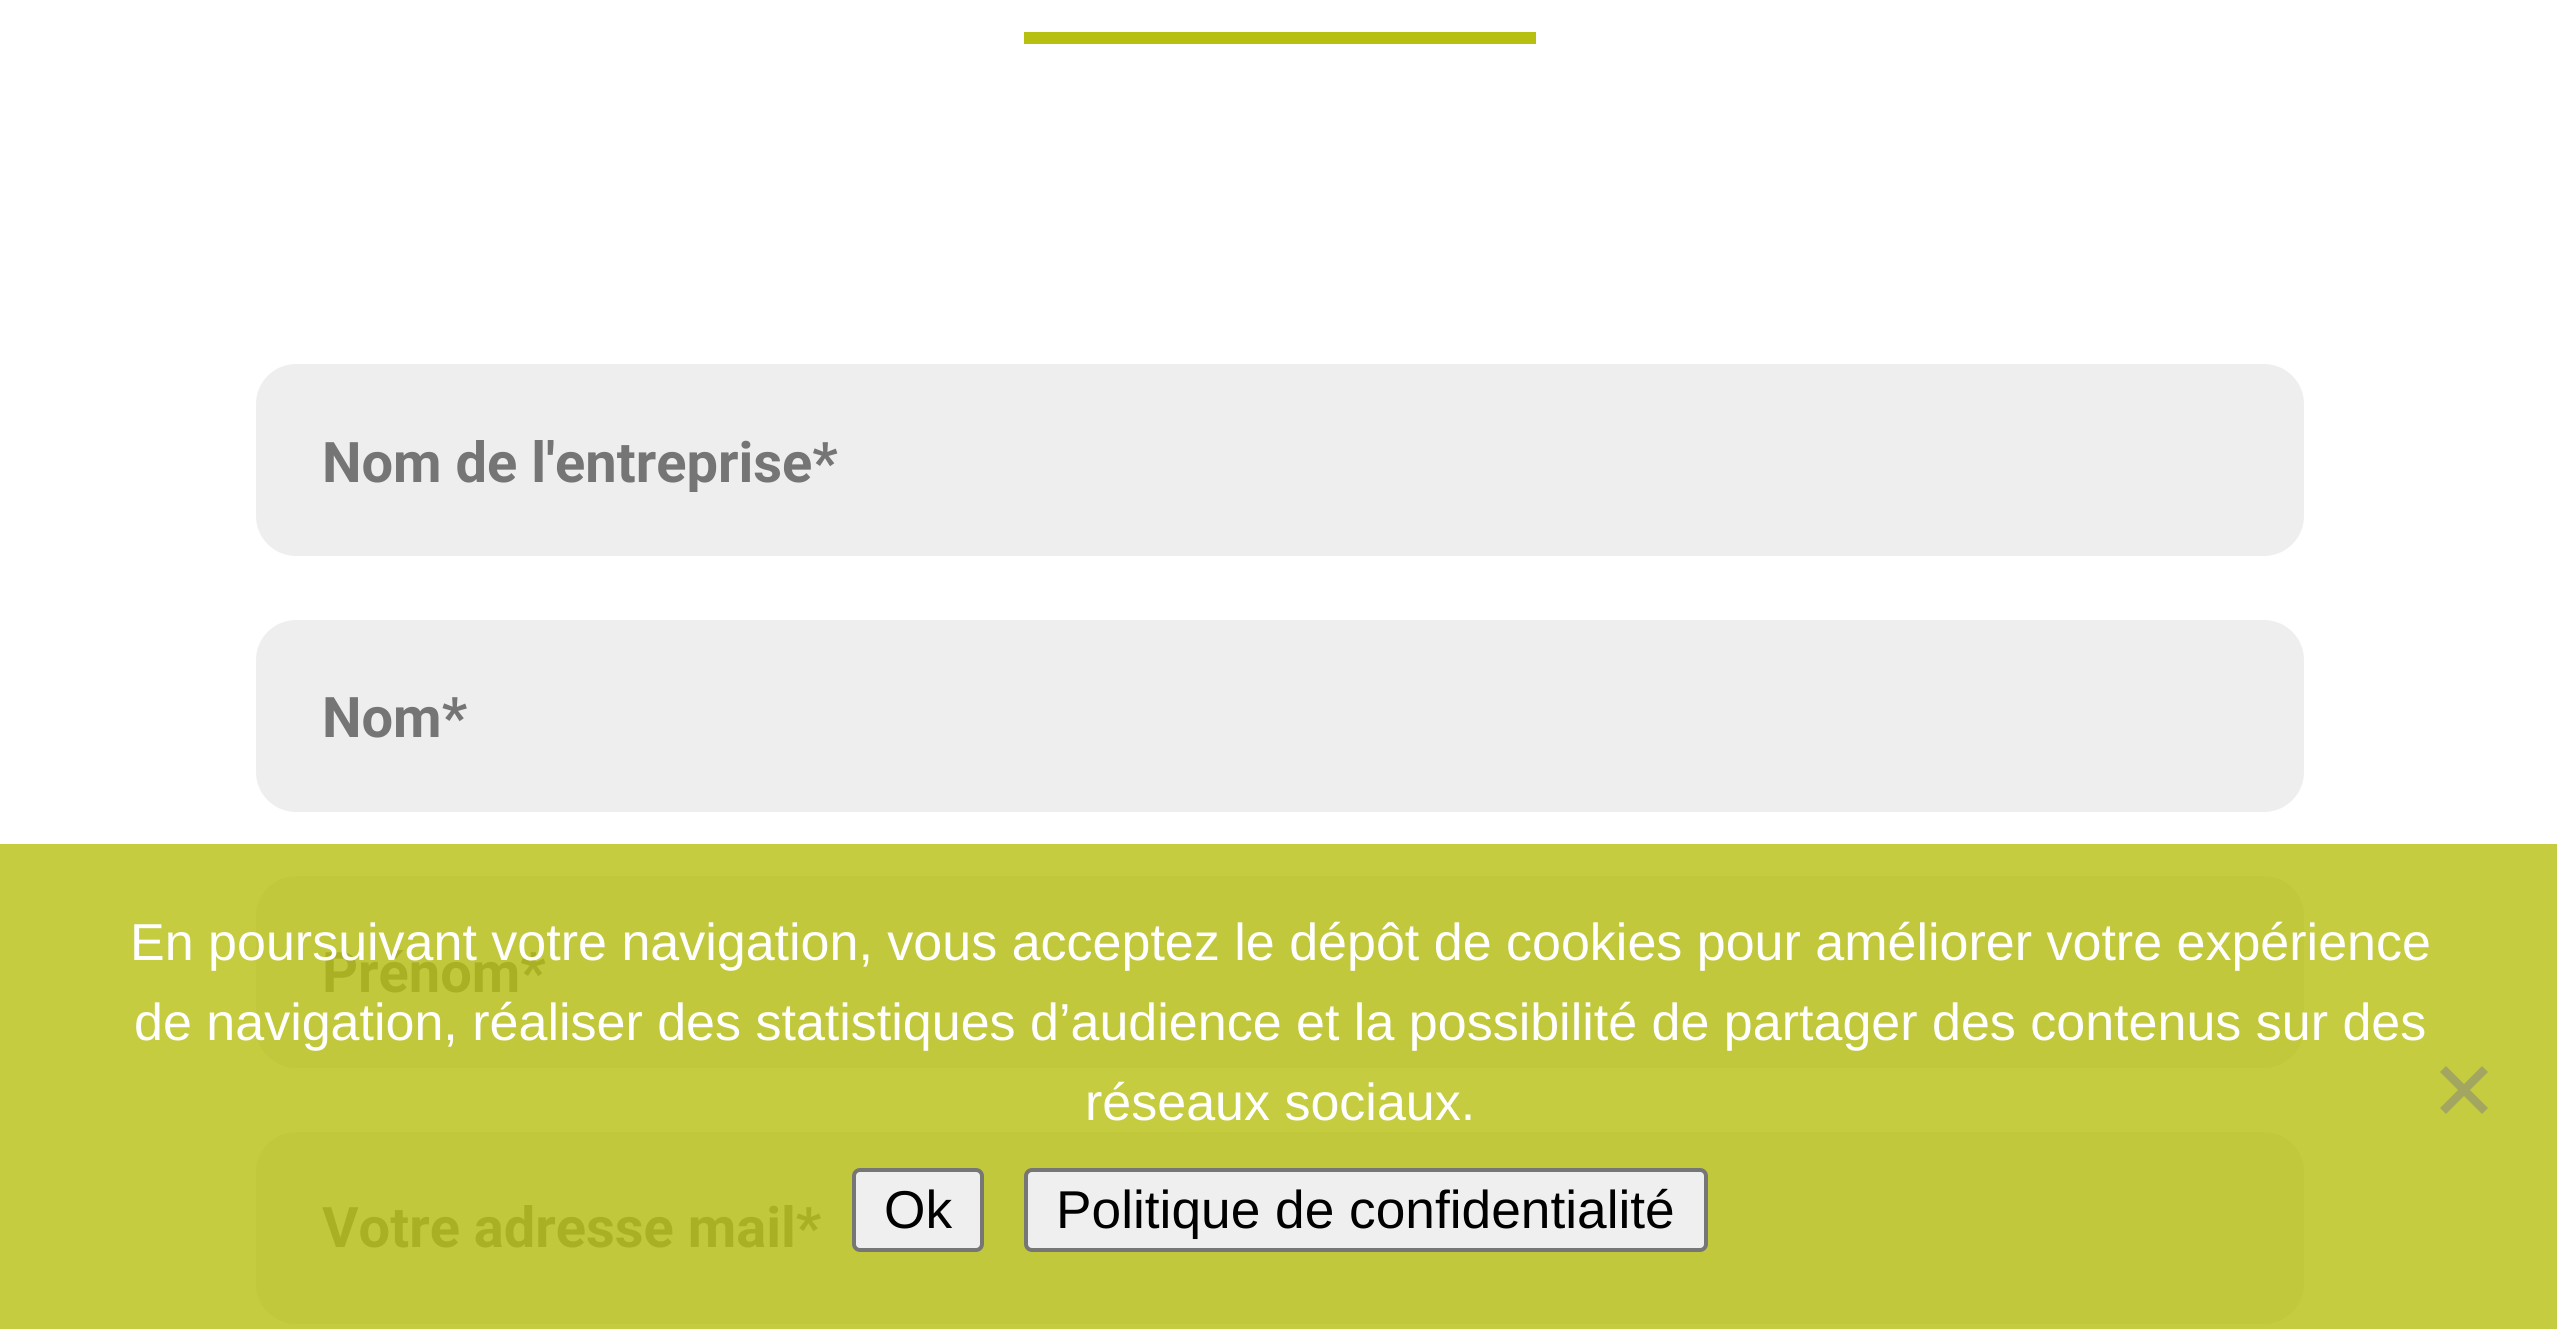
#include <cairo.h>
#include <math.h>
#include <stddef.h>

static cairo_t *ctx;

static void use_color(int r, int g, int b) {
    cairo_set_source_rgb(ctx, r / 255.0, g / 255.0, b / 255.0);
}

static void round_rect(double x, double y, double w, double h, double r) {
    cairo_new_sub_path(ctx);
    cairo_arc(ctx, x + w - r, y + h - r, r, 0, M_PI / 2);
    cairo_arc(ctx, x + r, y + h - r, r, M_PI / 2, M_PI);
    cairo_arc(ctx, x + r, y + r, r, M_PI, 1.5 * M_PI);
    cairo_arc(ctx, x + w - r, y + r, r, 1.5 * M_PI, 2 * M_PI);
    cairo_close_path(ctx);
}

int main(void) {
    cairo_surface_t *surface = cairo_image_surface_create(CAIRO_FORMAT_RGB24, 2557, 1329);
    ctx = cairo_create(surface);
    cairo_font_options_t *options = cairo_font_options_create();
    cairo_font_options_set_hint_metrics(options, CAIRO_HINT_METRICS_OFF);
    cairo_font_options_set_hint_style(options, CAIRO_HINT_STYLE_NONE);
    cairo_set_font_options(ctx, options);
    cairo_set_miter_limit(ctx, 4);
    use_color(255, 255, 255);
    cairo_paint(ctx);
    use_color(197, 204, 64);
    cairo_rectangle(ctx, 0, 844, 2557, 485);
    cairo_fill(ctx);
    use_color(183, 191, 16);
    cairo_rectangle(ctx, 1024, 32, 512, 12);
    cairo_fill(ctx);
    use_color(238, 238, 238);
    round_rect(256, 364, 2048, 192, 40);
    cairo_fill(ctx);
    cairo_save(ctx);
    cairo_rectangle(ctx, 320, 428, 1920, 64);
    cairo_clip(ctx);
    cairo_select_font_face(ctx, "Roboto", CAIRO_FONT_SLANT_NORMAL, CAIRO_FONT_WEIGHT_BOLD);
    cairo_set_font_size(ctx, 56);
    use_color(117, 117, 117);
    cairo_move_to(ctx, 322, 482);
    cairo_show_text(ctx, "Nom de l'entreprise*");
    cairo_restore(ctx);
    round_rect(256, 620, 2048, 192, 40);
    cairo_fill(ctx);
    cairo_select_font_face(ctx, "Roboto", CAIRO_FONT_SLANT_NORMAL, CAIRO_FONT_WEIGHT_BOLD);
    cairo_set_font_size(ctx, 56);
    use_color(117, 117, 117);
    cairo_move_to(ctx, 322, 737);
    cairo_show_text(ctx, "Nom*");
    use_color(194, 200, 60);
    round_rect(256, 876, 2048, 192, 40);
    cairo_fill(ctx);
    use_color(170, 176, 36);
    cairo_move_to(ctx, 322, 992);
    cairo_show_text(ctx, "Prénom*");
    use_color(194, 200, 60);
    round_rect(256, 1132, 2048, 192, 40);
    cairo_fill(ctx);
    use_color(170, 176, 36);
    cairo_move_to(ctx, 322, 1247);
    cairo_show_text(ctx, "Votre adresse mail*");
    cairo_select_font_face(ctx, "Liberation Sans", CAIRO_FONT_SLANT_NORMAL, CAIRO_FONT_WEIGHT_NORMAL);
    cairo_set_font_size(ctx, 52);
    use_color(255, 255, 255);
    cairo_move_to(ctx, 130, 960);
    cairo_show_text(ctx, "En poursuivant votre navigation, vous acceptez le dépôt de cookies pour améliorer votre expérience");
    cairo_move_to(ctx, 134, 1040);
    cairo_show_text(ctx, "de navigation, réaliser des statistiques d’audience et la possibilité de partager des contenus sur des");
    cairo_move_to(ctx, 1085, 1120);
    cairo_show_text(ctx, "réseaux sociaux.");
    use_color(163, 166, 96);
    cairo_new_path(ctx);
    cairo_move_to(ctx, 2482, 1066);
    cairo_line_to(ctx, 2488, 1072);
    cairo_line_to(ctx, 2446, 1114);
    cairo_line_to(ctx, 2440, 1108);
    cairo_close_path(ctx);
    cairo_fill(ctx);
    cairo_new_path(ctx);
    cairo_move_to(ctx, 2440, 1072);
    cairo_line_to(ctx, 2446, 1066);
    cairo_line_to(ctx, 2488, 1108);
    cairo_line_to(ctx, 2482, 1114);
    cairo_close_path(ctx);
    cairo_fill(ctx);
    use_color(239, 239, 239);
    round_rect(854, 1170, 128, 80, 6);
    cairo_fill_preserve(ctx);
    use_color(118, 118, 118);
    cairo_set_line_width(ctx, 4);
    cairo_stroke(ctx);
    cairo_set_font_size(ctx, 53.25);
    use_color(0, 0, 0);
    cairo_move_to(ctx, 884, 1228);
    cairo_show_text(ctx, "Ok");
    use_color(239, 239, 239);
    round_rect(1026, 1170, 680, 80, 6);
    cairo_fill_preserve(ctx);
    use_color(118, 118, 118);
    cairo_stroke(ctx);
    use_color(0, 0, 0);
    cairo_move_to(ctx, 1056, 1228);
    cairo_show_text(ctx, "Politique de confidentialité");
    cairo_surface_write_to_png(surface, "result.png");
    cairo_font_options_destroy(options);
    cairo_destroy(ctx);
    cairo_surface_destroy(surface);
    return 0;
}
